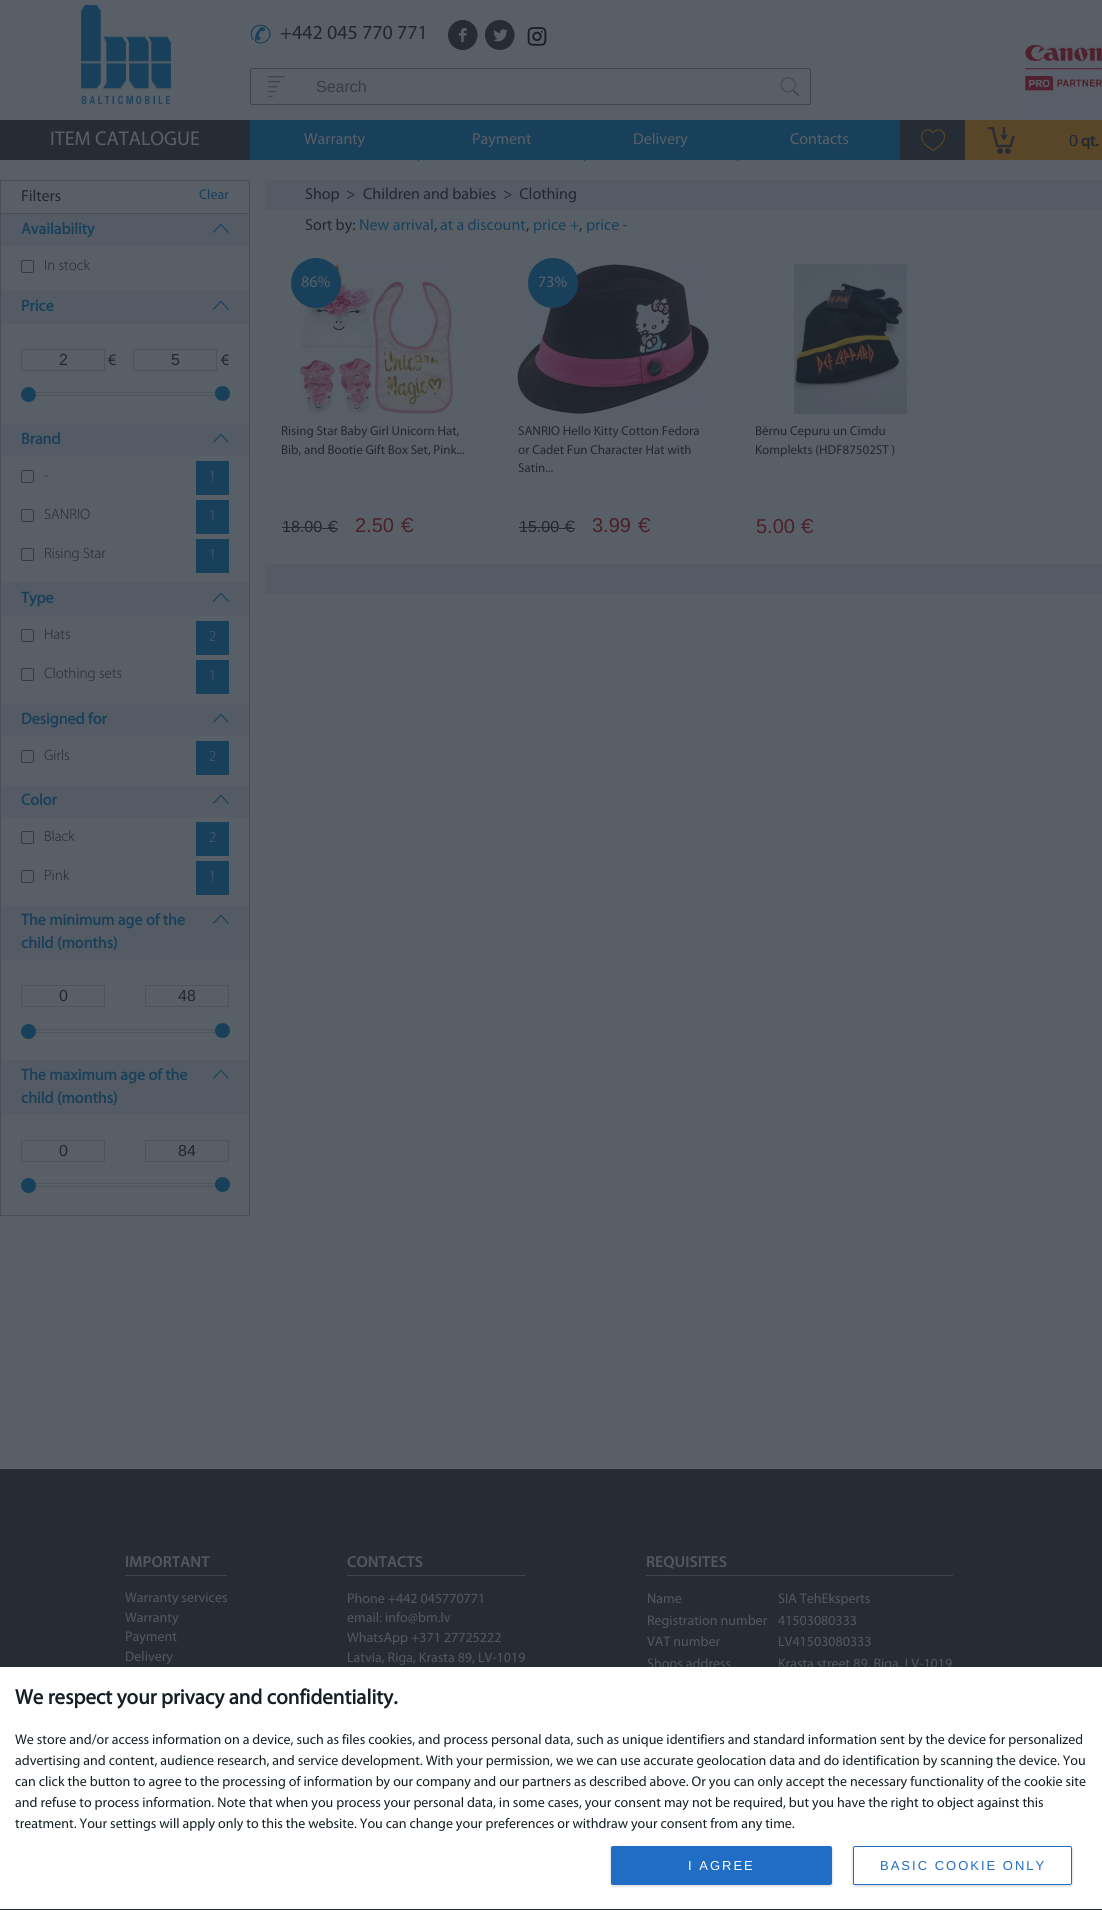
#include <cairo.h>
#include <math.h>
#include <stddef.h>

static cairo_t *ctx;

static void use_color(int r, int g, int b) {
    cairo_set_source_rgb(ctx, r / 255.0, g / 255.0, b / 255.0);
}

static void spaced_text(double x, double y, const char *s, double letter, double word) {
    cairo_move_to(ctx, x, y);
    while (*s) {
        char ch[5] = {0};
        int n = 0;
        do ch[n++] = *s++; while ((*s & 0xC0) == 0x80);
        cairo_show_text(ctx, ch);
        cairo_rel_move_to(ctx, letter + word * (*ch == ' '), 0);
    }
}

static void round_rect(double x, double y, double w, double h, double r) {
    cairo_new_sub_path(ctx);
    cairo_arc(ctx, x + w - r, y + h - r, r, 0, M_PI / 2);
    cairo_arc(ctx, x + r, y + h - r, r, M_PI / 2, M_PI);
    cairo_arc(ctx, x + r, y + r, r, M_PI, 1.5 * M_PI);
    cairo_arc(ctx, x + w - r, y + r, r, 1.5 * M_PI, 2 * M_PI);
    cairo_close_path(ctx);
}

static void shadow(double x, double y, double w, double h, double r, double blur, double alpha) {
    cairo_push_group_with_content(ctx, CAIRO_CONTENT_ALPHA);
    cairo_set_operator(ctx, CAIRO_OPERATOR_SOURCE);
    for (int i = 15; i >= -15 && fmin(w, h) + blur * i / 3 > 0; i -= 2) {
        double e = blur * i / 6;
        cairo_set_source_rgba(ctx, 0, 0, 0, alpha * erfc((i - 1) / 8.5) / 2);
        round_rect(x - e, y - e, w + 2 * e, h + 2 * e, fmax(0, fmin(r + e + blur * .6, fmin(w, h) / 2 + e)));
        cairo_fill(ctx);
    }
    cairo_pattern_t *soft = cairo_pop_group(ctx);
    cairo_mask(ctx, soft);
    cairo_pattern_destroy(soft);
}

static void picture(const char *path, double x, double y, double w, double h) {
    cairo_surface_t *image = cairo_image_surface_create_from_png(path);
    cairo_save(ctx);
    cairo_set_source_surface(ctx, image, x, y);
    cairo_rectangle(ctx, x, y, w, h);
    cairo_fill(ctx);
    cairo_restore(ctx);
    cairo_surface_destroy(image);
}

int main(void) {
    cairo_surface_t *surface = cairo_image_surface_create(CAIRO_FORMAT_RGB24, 1102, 1910);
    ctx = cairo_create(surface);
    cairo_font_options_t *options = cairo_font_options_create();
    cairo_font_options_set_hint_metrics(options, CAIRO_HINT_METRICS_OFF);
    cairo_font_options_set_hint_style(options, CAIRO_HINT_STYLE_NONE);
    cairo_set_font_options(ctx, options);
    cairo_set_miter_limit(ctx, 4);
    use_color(89, 95, 103);
    cairo_paint(ctx);
    picture("img1.png", 81, 5, 90, 99);
    picture("img2.png", 250, 24, 21, 20);
    cairo_select_font_face(ctx, "Myriad", CAIRO_FONT_SLANT_NORMAL, CAIRO_FONT_WEIGHT_NORMAL);
    cairo_set_font_size(ctx, 20);
    use_color(33, 39, 48);
    cairo_move_to(ctx, 280, 39);
    cairo_show_text(ctx, "+442 045 770 771");
    picture("img3.png", 448, 20, 30, 30);
    picture("img4.png", 485, 20, 30, 30);
    picture("img5.png", 527, 27, 20, 19);
    picture("img6.png", 268, 76, 17, 21);
    use_color(63, 69, 77);
    cairo_rectangle(ctx, 251, 68, 559, 1);
    cairo_fill(ctx);
    cairo_rectangle(ctx, 251, 104, 559, 1);
    cairo_fill(ctx);
    cairo_rectangle(ctx, 250, 69, 1, 35);
    cairo_fill(ctx);
    cairo_select_font_face(ctx, "Liberation Sans", CAIRO_FONT_SLANT_NORMAL, CAIRO_FONT_WEIGHT_NORMAL);
    cairo_set_font_size(ctx, 16);
    use_color(54, 60, 68);
    cairo_move_to(ctx, 316, 92);
    cairo_show_text(ctx, "Search");
    picture("img7.png", 781, 77, 19, 20);
    use_color(63, 69, 77);
    cairo_rectangle(ctx, 810, 69, 1, 35);
    cairo_fill(ctx);
    picture("img8.png", 1025, 45, 77, 74);
    use_color(38, 44, 52);
    cairo_rectangle(ctx, 0, 120, 250, 40);
    cairo_fill(ctx);
    cairo_select_font_face(ctx, "Myriad", CAIRO_FONT_SLANT_NORMAL, CAIRO_FONT_WEIGHT_NORMAL);
    cairo_set_font_size(ctx, 20);
    use_color(89, 95, 103);
    cairo_move_to(ctx, 50, 145);
    cairo_show_text(ctx, "ITEM CATALOGUE");
    use_color(30, 61, 83);
    cairo_rectangle(ctx, 418, 160, 1, 1);
    cairo_fill(ctx);
    use_color(25, 64, 90);
    cairo_rectangle(ctx, 250, 120, 650, 40);
    cairo_fill(ctx);
    cairo_set_font_size(ctx, 16);
    use_color(89, 95, 103);
    cairo_move_to(ctx, 304, 144);
    cairo_show_text(ctx, "Warranty");
    use_color(30, 61, 83);
    cairo_rectangle(ctx, 584, 160, 1, 1);
    cairo_fill(ctx);
    use_color(89, 95, 103);
    cairo_move_to(ctx, 472, 144);
    cairo_show_text(ctx, "Payment");
    use_color(30, 61, 83);
    cairo_rectangle(ctx, 737, 160, 1, 1);
    cairo_fill(ctx);
    use_color(89, 95, 103);
    cairo_move_to(ctx, 633, 144);
    cairo_show_text(ctx, "Delivery");
    cairo_move_to(ctx, 790, 144);
    cairo_show_text(ctx, "Contacts");
    use_color(89, 69, 39);
    cairo_rectangle(ctx, 965, 120, 137, 40);
    cairo_fill(ctx);
    use_color(38, 44, 52);
    cairo_rectangle(ctx, 900, 120, 65, 40);
    cairo_fill(ctx);
    picture("img9.png", 921, 129, 24, 22);
    picture("img10.png", 988, 127, 27, 27);
    cairo_select_font_face(ctx, "Liberation Sans", CAIRO_FONT_SLANT_NORMAL, CAIRO_FONT_WEIGHT_NORMAL);
    use_color(33, 39, 48);
    cairo_move_to(ctx, 1069, 146);
    cairo_show_text(ctx, "0");
    cairo_select_font_face(ctx, "Myriad", CAIRO_FONT_SLANT_NORMAL, CAIRO_FONT_WEIGHT_BOLD);
    cairo_move_to(ctx, 1081, 146);
    cairo_show_text(ctx, "qt.");
    cairo_rectangle(ctx, 0.5, 180.5, 249, 1035);
    use_color(72, 78, 86);
    cairo_set_line_width(ctx, 1);
    cairo_stroke(ctx);
    cairo_rectangle(ctx, 1, 213, 248, 1);
    cairo_fill(ctx);
    cairo_select_font_face(ctx, "Myriad", CAIRO_FONT_SLANT_NORMAL, CAIRO_FONT_WEIGHT_NORMAL);
    use_color(33, 39, 48);
    cairo_move_to(ctx, 21, 201);
    cairo_show_text(ctx, "Filters");
    cairo_set_font_size(ctx, 14);
    use_color(25, 64, 90);
    cairo_move_to(ctx, 199, 199);
    cairo_show_text(ctx, "Clear");
    use_color(84, 91, 100);
    cairo_rectangle(ctx, 1, 214, 248, 32);
    cairo_fill(ctx);
    cairo_select_font_face(ctx, "Myriad", CAIRO_FONT_SLANT_NORMAL, CAIRO_FONT_WEIGHT_BOLD);
    cairo_set_font_size(ctx, 16);
    use_color(25, 64, 90);
    cairo_move_to(ctx, 21, 234);
    cairo_show_text(ctx, "Availability");
    picture("img11.png", 212, 224, 17, 9);
    round_rect(21.5, 260.5, 12, 12, 1.5);
    use_color(54, 60, 69);
    cairo_stroke(ctx);
    cairo_select_font_face(ctx, "Myriad Light", CAIRO_FONT_SLANT_NORMAL, CAIRO_FONT_WEIGHT_NORMAL);
    cairo_set_font_size(ctx, 15);
    use_color(33, 39, 48);
    cairo_move_to(ctx, 44, 270);
    cairo_show_text(ctx, "In stock");
    use_color(84, 91, 100);
    cairo_rectangle(ctx, 1, 291, 248, 33);
    cairo_fill(ctx);
    cairo_select_font_face(ctx, "Myriad", CAIRO_FONT_SLANT_NORMAL, CAIRO_FONT_WEIGHT_BOLD);
    cairo_set_font_size(ctx, 16);
    use_color(25, 64, 90);
    cairo_move_to(ctx, 21, 311);
    cairo_show_text(ctx, "Price");
    picture("img11.png", 212, 301, 17, 9);
    cairo_rectangle(ctx, 21.5, 349.5, 83, 21);
    use_color(78, 84, 92);
    cairo_stroke(ctx);
    cairo_select_font_face(ctx, "Liberation Sans", CAIRO_FONT_SLANT_NORMAL, CAIRO_FONT_WEIGHT_NORMAL);
    use_color(33, 39, 48);
    cairo_move_to(ctx, 59, 365);
    cairo_show_text(ctx, "2");
    cairo_select_font_face(ctx, "Myriad", CAIRO_FONT_SLANT_NORMAL, CAIRO_FONT_WEIGHT_NORMAL);
    cairo_move_to(ctx, 108, 365);
    cairo_show_text(ctx, "€");
    cairo_rectangle(ctx, 133.5, 349.5, 83, 21);
    use_color(78, 84, 92);
    cairo_stroke(ctx);
    cairo_select_font_face(ctx, "Liberation Sans", CAIRO_FONT_SLANT_NORMAL, CAIRO_FONT_WEIGHT_NORMAL);
    use_color(33, 39, 48);
    cairo_move_to(ctx, 171, 365);
    cairo_show_text(ctx, "5");
    cairo_select_font_face(ctx, "Myriad", CAIRO_FONT_SLANT_NORMAL, CAIRO_FONT_WEIGHT_NORMAL);
    cairo_move_to(ctx, 221, 365);
    cairo_show_text(ctx, "€");
    round_rect(21.5, 392.5, 194, 3, 1.5);
    use_color(79, 85, 93);
    cairo_stroke(ctx);
    use_color(25, 64, 90);
    cairo_arc(ctx, 28.5, 394.5, 7.5, 0, 2 * M_PI);
    cairo_fill(ctx);
    cairo_arc(ctx, 222.5, 393.5, 7.5, 0, 2 * M_PI);
    cairo_fill(ctx);
    use_color(84, 91, 100);
    cairo_rectangle(ctx, 1, 424, 248, 32);
    cairo_fill(ctx);
    cairo_select_font_face(ctx, "Myriad", CAIRO_FONT_SLANT_NORMAL, CAIRO_FONT_WEIGHT_BOLD);
    use_color(25, 64, 90);
    cairo_move_to(ctx, 21, 444);
    cairo_show_text(ctx, "Brand");
    picture("img11.png", 212, 434, 17, 9);
    round_rect(21.5, 470.5, 12, 12, 1.5);
    use_color(54, 60, 69);
    cairo_stroke(ctx);
    cairo_select_font_face(ctx, "Myriad Light", CAIRO_FONT_SLANT_NORMAL, CAIRO_FONT_WEIGHT_NORMAL);
    cairo_set_font_size(ctx, 15);
    use_color(33, 39, 48);
    cairo_move_to(ctx, 44, 480);
    cairo_show_text(ctx, "-");
    use_color(25, 64, 90);
    cairo_rectangle(ctx, 196, 461, 33, 34);
    cairo_fill(ctx);
    use_color(89, 95, 103);
    cairo_move_to(ctx, 209, 481);
    cairo_show_text(ctx, "1");
    round_rect(21.5, 509.5, 12, 12, 1.5);
    use_color(54, 60, 69);
    cairo_stroke(ctx);
    use_color(33, 39, 48);
    cairo_move_to(ctx, 44, 519);
    cairo_show_text(ctx, "SANRIO");
    use_color(25, 64, 90);
    cairo_rectangle(ctx, 196, 500, 33, 34);
    cairo_fill(ctx);
    use_color(89, 95, 103);
    cairo_move_to(ctx, 209, 520);
    cairo_show_text(ctx, "1");
    round_rect(21.5, 548.5, 12, 12, 1.5);
    use_color(54, 60, 69);
    cairo_stroke(ctx);
    use_color(33, 39, 48);
    cairo_move_to(ctx, 44, 558);
    cairo_show_text(ctx, "Rising Star");
    use_color(25, 64, 90);
    cairo_rectangle(ctx, 196, 539, 33, 34);
    cairo_fill(ctx);
    use_color(89, 95, 103);
    cairo_move_to(ctx, 209, 559);
    cairo_show_text(ctx, "1");
    use_color(84, 91, 100);
    cairo_rectangle(ctx, 1, 583, 248, 33);
    cairo_fill(ctx);
    cairo_select_font_face(ctx, "Myriad", CAIRO_FONT_SLANT_NORMAL, CAIRO_FONT_WEIGHT_BOLD);
    cairo_set_font_size(ctx, 16);
    use_color(25, 64, 90);
    cairo_move_to(ctx, 21, 603);
    cairo_show_text(ctx, "Type");
    picture("img11.png", 212, 593, 17, 9);
    round_rect(21.5, 629.5, 12, 12, 1.5);
    use_color(54, 60, 69);
    cairo_stroke(ctx);
    cairo_select_font_face(ctx, "Myriad Light", CAIRO_FONT_SLANT_NORMAL, CAIRO_FONT_WEIGHT_NORMAL);
    cairo_set_font_size(ctx, 15);
    use_color(33, 39, 48);
    cairo_move_to(ctx, 44, 639);
    cairo_show_text(ctx, "Hats");
    use_color(25, 64, 90);
    cairo_rectangle(ctx, 196, 621, 33, 34);
    cairo_fill(ctx);
    use_color(89, 95, 103);
    cairo_move_to(ctx, 209, 641);
    cairo_show_text(ctx, "2");
    round_rect(21.5, 668.5, 12, 12, 1.5);
    use_color(54, 60, 69);
    cairo_stroke(ctx);
    use_color(33, 39, 48);
    cairo_move_to(ctx, 44, 678);
    cairo_show_text(ctx, "Clothing sets");
    use_color(25, 64, 90);
    cairo_rectangle(ctx, 196, 660, 33, 34);
    cairo_fill(ctx);
    use_color(89, 95, 103);
    cairo_move_to(ctx, 209, 680);
    cairo_show_text(ctx, "1");
    use_color(84, 91, 100);
    cairo_rectangle(ctx, 1, 704, 248, 32);
    cairo_fill(ctx);
    cairo_select_font_face(ctx, "Myriad", CAIRO_FONT_SLANT_NORMAL, CAIRO_FONT_WEIGHT_BOLD);
    cairo_set_font_size(ctx, 16);
    use_color(25, 64, 90);
    cairo_move_to(ctx, 21, 724);
    cairo_show_text(ctx, "Designed for");
    picture("img11.png", 212, 714, 17, 9);
    round_rect(21.5, 750.5, 12, 12, 1.5);
    use_color(54, 60, 69);
    cairo_stroke(ctx);
    cairo_select_font_face(ctx, "Myriad Light", CAIRO_FONT_SLANT_NORMAL, CAIRO_FONT_WEIGHT_NORMAL);
    cairo_set_font_size(ctx, 15);
    use_color(33, 39, 48);
    cairo_move_to(ctx, 44, 760);
    cairo_show_text(ctx, "Girls");
    use_color(25, 64, 90);
    cairo_rectangle(ctx, 196, 741, 33, 34);
    cairo_fill(ctx);
    use_color(89, 95, 103);
    cairo_move_to(ctx, 209, 761);
    cairo_show_text(ctx, "2");
    use_color(84, 91, 100);
    cairo_rectangle(ctx, 1, 785, 248, 32);
    cairo_fill(ctx);
    cairo_select_font_face(ctx, "Myriad", CAIRO_FONT_SLANT_NORMAL, CAIRO_FONT_WEIGHT_BOLD);
    cairo_set_font_size(ctx, 16);
    use_color(25, 64, 90);
    cairo_move_to(ctx, 21, 805);
    cairo_show_text(ctx, "Color");
    picture("img11.png", 212, 795, 17, 9);
    round_rect(21.5, 831.5, 12, 12, 1.5);
    use_color(54, 60, 69);
    cairo_stroke(ctx);
    cairo_select_font_face(ctx, "Myriad Light", CAIRO_FONT_SLANT_NORMAL, CAIRO_FONT_WEIGHT_NORMAL);
    cairo_set_font_size(ctx, 15);
    use_color(33, 39, 48);
    cairo_move_to(ctx, 44, 841);
    cairo_show_text(ctx, "Black");
    use_color(25, 64, 90);
    cairo_rectangle(ctx, 196, 822, 33, 34);
    cairo_fill(ctx);
    use_color(89, 95, 103);
    cairo_move_to(ctx, 209, 842);
    cairo_show_text(ctx, "2");
    round_rect(21.5, 870.5, 12, 12, 1.5);
    use_color(54, 60, 69);
    cairo_stroke(ctx);
    use_color(33, 39, 48);
    cairo_move_to(ctx, 44, 880);
    cairo_show_text(ctx, "Pink");
    use_color(25, 64, 90);
    cairo_rectangle(ctx, 196, 861, 33, 34);
    cairo_fill(ctx);
    use_color(89, 95, 103);
    cairo_move_to(ctx, 209, 881);
    cairo_show_text(ctx, "1");
    use_color(84, 91, 100);
    cairo_rectangle(ctx, 1, 905, 248, 55);
    cairo_fill(ctx);
    cairo_select_font_face(ctx, "Myriad", CAIRO_FONT_SLANT_NORMAL, CAIRO_FONT_WEIGHT_BOLD);
    cairo_set_font_size(ctx, 16);
    use_color(25, 64, 90);
    cairo_move_to(ctx, 21, 925);
    cairo_show_text(ctx, "The minimum age of the");
    cairo_move_to(ctx, 21, 948);
    cairo_show_text(ctx, "child (months)");
    picture("img11.png", 212, 915, 17, 9);
    cairo_rectangle(ctx, 21.5, 985.5, 83, 21);
    use_color(78, 84, 92);
    cairo_stroke(ctx);
    cairo_select_font_face(ctx, "Liberation Sans", CAIRO_FONT_SLANT_NORMAL, CAIRO_FONT_WEIGHT_NORMAL);
    use_color(33, 39, 48);
    cairo_move_to(ctx, 59, 1001);
    cairo_show_text(ctx, "0");
    cairo_rectangle(ctx, 145.5, 985.5, 83, 21);
    use_color(78, 84, 92);
    cairo_stroke(ctx);
    use_color(33, 39, 48);
    cairo_move_to(ctx, 178, 1001);
    cairo_show_text(ctx, "48");
    round_rect(21.5, 1029.5, 194, 3, 1.5);
    use_color(79, 85, 93);
    cairo_stroke(ctx);
    use_color(25, 64, 90);
    cairo_arc(ctx, 28.5, 1031.5, 7.5, 0, 2 * M_PI);
    cairo_fill(ctx);
    cairo_arc(ctx, 222.5, 1030.5, 7.5, 0, 2 * M_PI);
    cairo_fill(ctx);
    use_color(84, 91, 100);
    cairo_rectangle(ctx, 1, 1060, 248, 55);
    cairo_fill(ctx);
    cairo_select_font_face(ctx, "Myriad", CAIRO_FONT_SLANT_NORMAL, CAIRO_FONT_WEIGHT_BOLD);
    use_color(25, 64, 90);
    cairo_move_to(ctx, 21, 1080);
    cairo_show_text(ctx, "The maximum age of the");
    cairo_move_to(ctx, 21, 1103);
    cairo_show_text(ctx, "child (months)");
    picture("img11.png", 212, 1070, 17, 9);
    cairo_rectangle(ctx, 21.5, 1140.5, 83, 21);
    use_color(78, 84, 92);
    cairo_stroke(ctx);
    cairo_select_font_face(ctx, "Liberation Sans", CAIRO_FONT_SLANT_NORMAL, CAIRO_FONT_WEIGHT_NORMAL);
    use_color(33, 39, 48);
    cairo_move_to(ctx, 59, 1156);
    cairo_show_text(ctx, "0");
    cairo_rectangle(ctx, 145.5, 1140.5, 83, 21);
    use_color(78, 84, 92);
    cairo_stroke(ctx);
    use_color(33, 39, 48);
    cairo_move_to(ctx, 178, 1156);
    cairo_show_text(ctx, "84");
    round_rect(21.5, 1183.5, 194, 3, 1.5);
    use_color(79, 85, 93);
    cairo_stroke(ctx);
    use_color(25, 64, 90);
    cairo_arc(ctx, 28.5, 1185.5, 7.5, 0, 2 * M_PI);
    cairo_fill(ctx);
    cairo_arc(ctx, 222.5, 1184.5, 7.5, 0, 2 * M_PI);
    cairo_fill(ctx);
    use_color(84, 91, 100);
    cairo_rectangle(ctx, 265, 180, 837, 30);
    cairo_fill(ctx);
    cairo_select_font_face(ctx, "Myriad", CAIRO_FONT_SLANT_NORMAL, CAIRO_FONT_WEIGHT_NORMAL);
    use_color(33, 39, 48);
    cairo_move_to(ctx, 305, 199);
    cairo_show_text(ctx, "Shop");
    cairo_move_to(ctx, 346, 199);
    cairo_show_text(ctx, ">");
    cairo_move_to(ctx, 363, 199);
    cairo_show_text(ctx, "Children and babies");
    cairo_move_to(ctx, 503, 199);
    cairo_show_text(ctx, ">  Clothing");
    cairo_move_to(ctx, 305, 230);
    cairo_show_text(ctx, "Sort by:");
    use_color(25, 64, 90);
    cairo_move_to(ctx, 359, 230);
    cairo_show_text(ctx, "New arrival");
    use_color(33, 39, 48);
    cairo_move_to(ctx, 434, 230);
    cairo_show_text(ctx, ",");
    use_color(25, 64, 90);
    cairo_move_to(ctx, 440, 230);
    cairo_show_text(ctx, "at a discount");
    use_color(33, 39, 48);
    cairo_move_to(ctx, 526, 230);
    cairo_show_text(ctx, ",");
    use_color(25, 64, 90);
    cairo_move_to(ctx, 533, 230);
    cairo_show_text(ctx, "price +");
    use_color(33, 39, 48);
    cairo_move_to(ctx, 579, 230);
    cairo_show_text(ctx, ",");
    use_color(25, 64, 90);
    cairo_move_to(ctx, 586, 230);
    cairo_show_text(ctx, "price -");
    picture("img12.png", 299, 264, 154, 150);
    cairo_arc(ctx, 316, 283, 25, 0, 2 * M_PI);
    cairo_fill(ctx);
    use_color(89, 95, 103);
    cairo_move_to(ctx, 301, 287);
    cairo_show_text(ctx, "86%");
    cairo_set_font_size(ctx, 13);
    use_color(33, 39, 48);
    cairo_move_to(ctx, 281, 435);
    cairo_show_text(ctx, "Rising Star Baby Girl Unicorn Hat,");
    cairo_move_to(ctx, 281, 454);
    cairo_show_text(ctx, "Bib, and Bootie Gift Box Set, Pink...");
    cairo_select_font_face(ctx, "Liberation Sans", CAIRO_FONT_SLANT_NORMAL, CAIRO_FONT_WEIGHT_NORMAL);
    cairo_set_font_size(ctx, 16);
    cairo_move_to(ctx, 282, 532);
    cairo_show_text(ctx, "18.00");
    use_color(38, 44, 52);
    cairo_rectangle(ctx, 282, 527, 40, 1);
    cairo_fill(ctx);
    cairo_select_font_face(ctx, "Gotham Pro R", CAIRO_FONT_SLANT_NORMAL, CAIRO_FONT_WEIGHT_NORMAL);
    use_color(33, 39, 48);
    cairo_move_to(ctx, 327, 532);
    cairo_show_text(ctx, "€");
    use_color(38, 44, 52);
    cairo_rectangle(ctx, 322, 528, 16, 1);
    cairo_fill(ctx);
    cairo_select_font_face(ctx, "Liberation Sans", CAIRO_FONT_SLANT_NORMAL, CAIRO_FONT_WEIGHT_NORMAL);
    cairo_set_font_size(ctx, 20);
    use_color(76, 31, 39);
    cairo_move_to(ctx, 355, 532);
    cairo_show_text(ctx, "2.50");
    cairo_select_font_face(ctx, "Gotham Pro R", CAIRO_FONT_SLANT_NORMAL, CAIRO_FONT_WEIGHT_NORMAL);
    cairo_move_to(ctx, 400, 532);
    cairo_show_text(ctx, "€");
    picture("img13.png", 517, 264, 192, 150);
    use_color(25, 64, 90);
    cairo_arc(ctx, 553, 283, 25, 0, 2 * M_PI);
    cairo_fill(ctx);
    cairo_select_font_face(ctx, "Myriad", CAIRO_FONT_SLANT_NORMAL, CAIRO_FONT_WEIGHT_NORMAL);
    cairo_set_font_size(ctx, 16);
    use_color(89, 95, 103);
    cairo_move_to(ctx, 538, 287);
    cairo_show_text(ctx, "73%");
    cairo_set_font_size(ctx, 13);
    use_color(33, 39, 48);
    cairo_move_to(ctx, 518, 435);
    cairo_show_text(ctx, "SANRIO Hello Kitty Cotton Fedora");
    cairo_move_to(ctx, 518, 454);
    cairo_show_text(ctx, "or Cadet Fun Character Hat with");
    cairo_move_to(ctx, 518, 472);
    cairo_show_text(ctx, "Satin...");
    cairo_select_font_face(ctx, "Liberation Sans", CAIRO_FONT_SLANT_NORMAL, CAIRO_FONT_WEIGHT_NORMAL);
    cairo_set_font_size(ctx, 16);
    cairo_move_to(ctx, 519, 532);
    cairo_show_text(ctx, "15.00");
    use_color(38, 44, 52);
    cairo_rectangle(ctx, 519, 527, 40, 1);
    cairo_fill(ctx);
    cairo_select_font_face(ctx, "Gotham Pro R", CAIRO_FONT_SLANT_NORMAL, CAIRO_FONT_WEIGHT_NORMAL);
    use_color(33, 39, 48);
    cairo_move_to(ctx, 564, 532);
    cairo_show_text(ctx, "€");
    use_color(38, 44, 52);
    cairo_rectangle(ctx, 559, 528, 16, 1);
    cairo_fill(ctx);
    cairo_select_font_face(ctx, "Liberation Sans", CAIRO_FONT_SLANT_NORMAL, CAIRO_FONT_WEIGHT_NORMAL);
    cairo_set_font_size(ctx, 20);
    use_color(76, 31, 39);
    cairo_move_to(ctx, 592, 532);
    cairo_show_text(ctx, "3.99");
    cairo_select_font_face(ctx, "Gotham Pro R", CAIRO_FONT_SLANT_NORMAL, CAIRO_FONT_WEIGHT_NORMAL);
    cairo_move_to(ctx, 637, 532);
    cairo_show_text(ctx, "€");
    picture("img14.png", 794, 264, 113, 150);
    cairo_select_font_face(ctx, "Myriad", CAIRO_FONT_SLANT_NORMAL, CAIRO_FONT_WEIGHT_NORMAL);
    cairo_set_font_size(ctx, 13);
    use_color(33, 39, 48);
    cairo_move_to(ctx, 755, 435);
    cairo_show_text(ctx, "Bērnu Cepuru un Cimdu");
    cairo_move_to(ctx, 755, 454);
    cairo_show_text(ctx, "Komplekts (HDF87502ST )");
    cairo_select_font_face(ctx, "Liberation Sans", CAIRO_FONT_SLANT_NORMAL, CAIRO_FONT_WEIGHT_NORMAL);
    cairo_set_font_size(ctx, 20);
    use_color(76, 31, 39);
    cairo_move_to(ctx, 756, 533);
    cairo_show_text(ctx, "5.00");
    cairo_select_font_face(ctx, "Gotham Pro R", CAIRO_FONT_SLANT_NORMAL, CAIRO_FONT_WEIGHT_NORMAL);
    cairo_move_to(ctx, 800, 533);
    cairo_show_text(ctx, "€");
    use_color(84, 91, 100);
    cairo_rectangle(ctx, 265, 564, 837, 30);
    cairo_fill(ctx);
    use_color(38, 44, 52);
    cairo_rectangle(ctx, 0, 1469, 1102, 441);
    cairo_fill(ctx);
    use_color(63, 69, 77);
    cairo_rectangle(ctx, 125, 1575, 102, 1);
    cairo_fill(ctx);
    cairo_select_font_face(ctx, "Myriad SemiBold", CAIRO_FONT_SLANT_NORMAL, CAIRO_FONT_WEIGHT_NORMAL);
    cairo_set_font_size(ctx, 16);
    use_color(82, 88, 96);
    cairo_move_to(ctx, 125, 1567);
    cairo_show_text(ctx, "IMPORTANT");
    cairo_select_font_face(ctx, "Myriad", CAIRO_FONT_SLANT_NORMAL, CAIRO_FONT_WEIGHT_NORMAL);
    cairo_set_font_size(ctx, 14);
    cairo_move_to(ctx, 125, 1602);
    cairo_show_text(ctx, "Warranty services");
    cairo_move_to(ctx, 125, 1622);
    cairo_show_text(ctx, "Warranty");
    cairo_move_to(ctx, 125, 1641);
    cairo_show_text(ctx, "Payment");
    cairo_move_to(ctx, 125, 1661);
    cairo_show_text(ctx, "Delivery");
    use_color(63, 69, 77);
    cairo_rectangle(ctx, 347, 1575, 179, 1);
    cairo_fill(ctx);
    cairo_select_font_face(ctx, "Myriad SemiBold", CAIRO_FONT_SLANT_NORMAL, CAIRO_FONT_WEIGHT_NORMAL);
    cairo_set_font_size(ctx, 16);
    use_color(82, 88, 96);
    cairo_move_to(ctx, 347, 1567);
    cairo_show_text(ctx, "CONTACTS");
    cairo_select_font_face(ctx, "Myriad", CAIRO_FONT_SLANT_NORMAL, CAIRO_FONT_WEIGHT_NORMAL);
    cairo_set_font_size(ctx, 14);
    cairo_move_to(ctx, 347, 1603);
    cairo_show_text(ctx, "Phone +442 045770771");
    cairo_move_to(ctx, 347, 1622);
    cairo_show_text(ctx, "email: info@bm.lv");
    cairo_move_to(ctx, 347, 1642);
    cairo_show_text(ctx, "WhatsApp +371 27725222");
    cairo_move_to(ctx, 347, 1662);
    cairo_show_text(ctx, "Latvia, Riga, Krasta 89, LV-1019");
    use_color(63, 69, 77);
    cairo_rectangle(ctx, 646, 1575, 307, 1);
    cairo_fill(ctx);
    cairo_select_font_face(ctx, "Myriad SemiBold", CAIRO_FONT_SLANT_NORMAL, CAIRO_FONT_WEIGHT_NORMAL);
    cairo_set_font_size(ctx, 16);
    use_color(82, 88, 96);
    cairo_move_to(ctx, 646, 1567);
    cairo_show_text(ctx, "REQUISITES");
    cairo_select_font_face(ctx, "Myriad", CAIRO_FONT_SLANT_NORMAL, CAIRO_FONT_WEIGHT_NORMAL);
    cairo_set_font_size(ctx, 14);
    cairo_move_to(ctx, 647, 1603);
    cairo_show_text(ctx, "Name");
    cairo_move_to(ctx, 778, 1603);
    cairo_show_text(ctx, "SIA TehEksperts");
    cairo_move_to(ctx, 647, 1625);
    cairo_show_text(ctx, "Registration number");
    cairo_move_to(ctx, 778, 1625);
    cairo_show_text(ctx, "41503080333");
    cairo_move_to(ctx, 647, 1646);
    cairo_show_text(ctx, "VAT number");
    cairo_move_to(ctx, 778, 1646);
    cairo_show_text(ctx, "LV41503080333");
    cairo_move_to(ctx, 647, 1668);
    cairo_show_text(ctx, "Shops address");
    cairo_move_to(ctx, 778, 1668);
    cairo_show_text(ctx, "Krasta street 89, Riga, LV-1019");
    use_color(255, 255, 255);
    cairo_rectangle(ctx, 0, 1667, 1102, 242);
    cairo_fill(ctx);
    cairo_select_font_face(ctx, "Myriad", CAIRO_FONT_SLANT_NORMAL, CAIRO_FONT_WEIGHT_BOLD);
    cairo_set_font_size(ctx, 21);
    use_color(20, 30, 35);
    cairo_move_to(ctx, 15, 1704);
    cairo_show_text(ctx, "We respect your privacy and confidentiality.");
    cairo_select_font_face(ctx, "Myriad", CAIRO_FONT_SLANT_NORMAL, CAIRO_FONT_WEIGHT_NORMAL);
    cairo_set_font_size(ctx, 14);
    cairo_move_to(ctx, 15, 1744);
    cairo_show_text(ctx, "We store and/or access information on a device, such as files cookies, and process personal data, such as unique identifiers and standard information sent by the device for personalized");
    cairo_move_to(ctx, 15, 1765);
    cairo_show_text(ctx, "advertising and content, audience research, and service development. With your permission, we we can use accurate geolocation data and do identification by scanning the device. You");
    cairo_move_to(ctx, 15, 1786);
    cairo_show_text(ctx, "can click the button to agree to the processing of information by our company and our partners as described above. Or you can only accept the necessary functionality of the cookie site");
    cairo_move_to(ctx, 15, 1807);
    cairo_show_text(ctx, "and refuse to process information. Note that when you process your personal data, in some cases, your consent may not be required, but you have the right to object against this");
    cairo_move_to(ctx, 15, 1828);
    cairo_show_text(ctx, "treatment. Your settings will apply only to this the website. You can change your preferences or withdraw your consent from any time.");
    use_color(0, 0, 0);
    shadow(610, 1846, 223, 41, 3, 0.5, 0.1);
    use_color(32, 109, 197);
    round_rect(611, 1846, 221, 39, 2);
    cairo_fill(ctx);
    cairo_select_font_face(ctx, "Liberation Sans", CAIRO_FONT_SLANT_NORMAL, CAIRO_FONT_WEIGHT_NORMAL);
    cairo_set_font_size(ctx, 13);
    use_color(255, 255, 255);
    spaced_text(688, 1870, "I AGREE", 2, 0);
    use_color(0, 0, 0);
    shadow(852, 1846, 221, 41, 3, 0.5, 0.1);
    use_color(255, 255, 255);
    round_rect(853.5, 1846.5, 218, 38, 1.5);
    cairo_fill_preserve(ctx);
    use_color(32, 109, 197);
    cairo_stroke(ctx);
    spaced_text(880, 1870, "BASIC COOKIE ONLY", 2, 0);
    cairo_surface_write_to_png(surface, "result.png");
    cairo_font_options_destroy(options);
    cairo_destroy(ctx);
    cairo_surface_destroy(surface);
    return 0;
}
